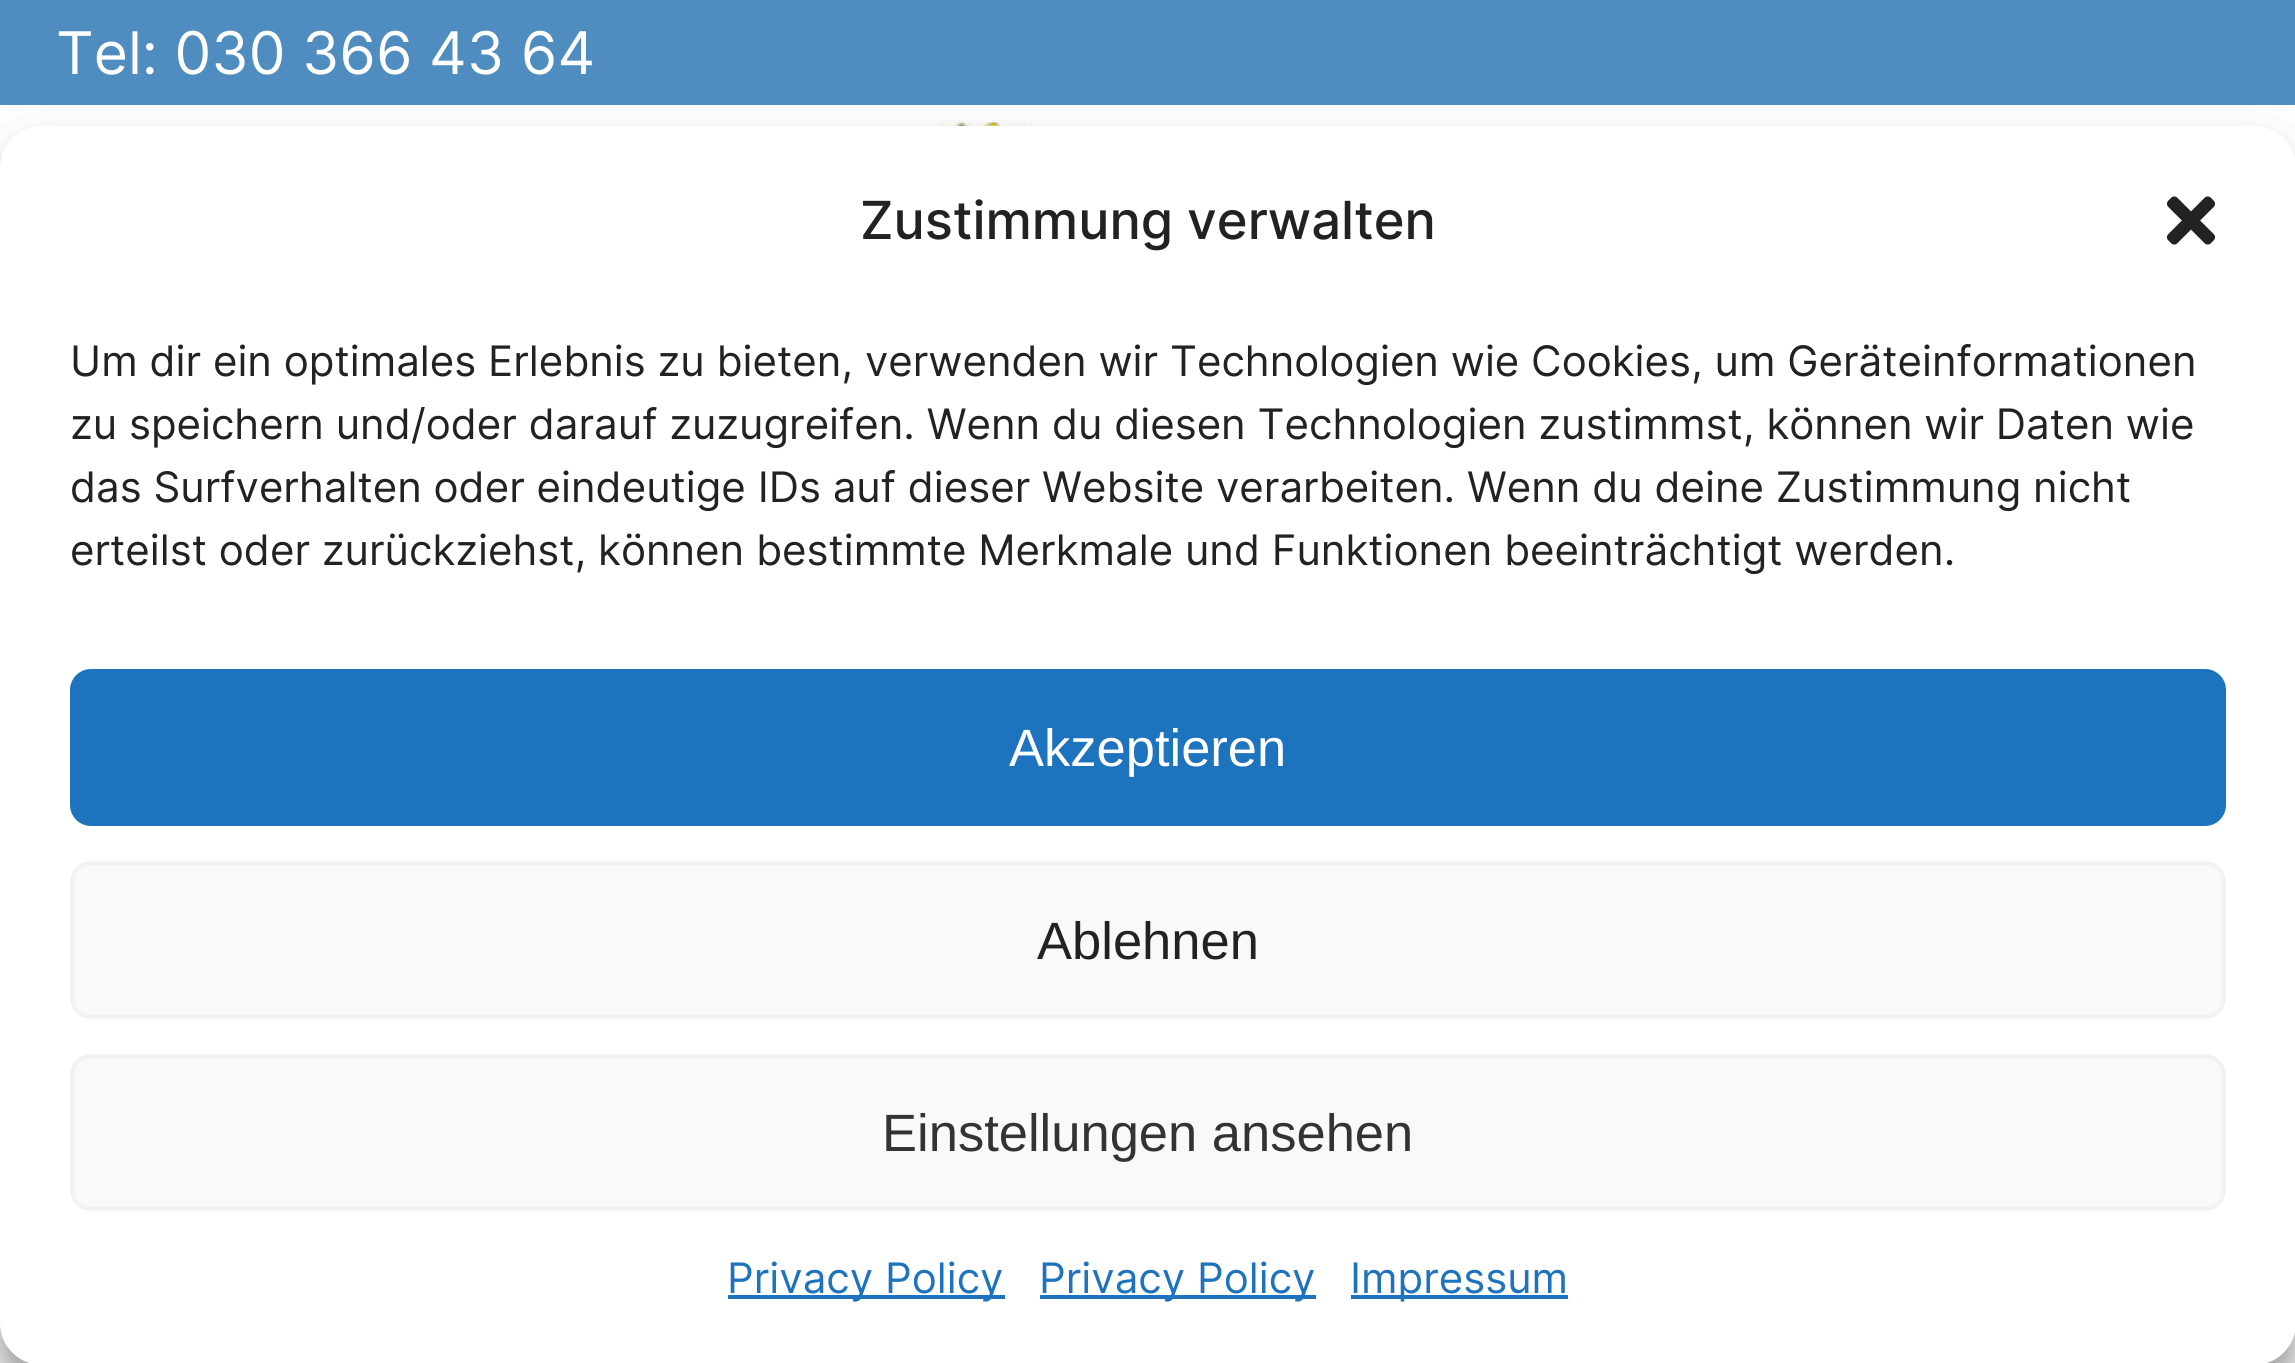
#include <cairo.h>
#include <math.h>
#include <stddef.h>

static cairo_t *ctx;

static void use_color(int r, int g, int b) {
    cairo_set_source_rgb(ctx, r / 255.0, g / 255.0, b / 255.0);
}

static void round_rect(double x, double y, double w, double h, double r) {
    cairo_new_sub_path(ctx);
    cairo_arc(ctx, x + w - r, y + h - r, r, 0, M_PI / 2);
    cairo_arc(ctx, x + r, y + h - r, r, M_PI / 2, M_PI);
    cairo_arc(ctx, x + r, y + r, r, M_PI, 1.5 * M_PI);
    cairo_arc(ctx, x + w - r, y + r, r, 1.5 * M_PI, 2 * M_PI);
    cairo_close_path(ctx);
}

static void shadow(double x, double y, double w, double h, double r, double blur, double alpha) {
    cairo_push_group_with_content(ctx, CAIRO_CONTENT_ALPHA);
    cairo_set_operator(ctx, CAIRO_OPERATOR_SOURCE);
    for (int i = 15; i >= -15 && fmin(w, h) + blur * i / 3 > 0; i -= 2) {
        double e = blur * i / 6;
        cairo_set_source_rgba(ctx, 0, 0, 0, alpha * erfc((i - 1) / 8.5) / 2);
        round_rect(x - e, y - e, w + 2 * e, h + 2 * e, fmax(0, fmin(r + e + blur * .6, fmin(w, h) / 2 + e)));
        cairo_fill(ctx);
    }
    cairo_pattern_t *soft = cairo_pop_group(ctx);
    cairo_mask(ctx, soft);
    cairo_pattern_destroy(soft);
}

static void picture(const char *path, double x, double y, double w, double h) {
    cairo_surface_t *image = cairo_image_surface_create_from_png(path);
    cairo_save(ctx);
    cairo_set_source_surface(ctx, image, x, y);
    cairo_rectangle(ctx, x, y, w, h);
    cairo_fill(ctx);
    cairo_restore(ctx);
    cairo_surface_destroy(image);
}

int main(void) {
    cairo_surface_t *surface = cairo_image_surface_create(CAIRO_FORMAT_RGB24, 2295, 1363);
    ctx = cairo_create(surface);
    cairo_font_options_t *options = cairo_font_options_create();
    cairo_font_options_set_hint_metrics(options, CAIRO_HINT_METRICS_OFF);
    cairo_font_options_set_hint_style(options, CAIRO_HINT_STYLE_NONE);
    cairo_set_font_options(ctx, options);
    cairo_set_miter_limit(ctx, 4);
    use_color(249, 249, 249);
    cairo_paint(ctx);
    use_color(79, 141, 192);
    cairo_rectangle(ctx, 0, 0, 2295, 105);
    cairo_fill(ctx);
    cairo_select_font_face(ctx, "Inter", CAIRO_FONT_SLANT_NORMAL, CAIRO_FONT_WEIGHT_NORMAL);
    cairo_set_font_size(ctx, 58.75);
    use_color(255, 255, 255);
    cairo_move_to(ctx, 56, 74);
    cairo_show_text(ctx, "Tel: 030 366 43 64");
    cairo_rectangle(ctx, 0, 105, 2295, 63);
    cairo_fill(ctx);
    picture("img1.png", 342, 122, 1612, 4);
    use_color(0, 0, 0);
    shadow(0, 147, 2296, 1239, 42, 10.5, 0.23);
    shadow(0, 161, 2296, 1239, 42, 35, 0.19);
    use_color(255, 255, 255);
    round_rect(0, 126, 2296, 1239, 42);
    cairo_fill(ctx);
    cairo_select_font_face(ctx, "Inter Medium", CAIRO_FONT_SLANT_NORMAL, CAIRO_FONT_WEIGHT_NORMAL);
    cairo_set_font_size(ctx, 52.5);
    use_color(34, 34, 34);
    cairo_move_to(ctx, 860, 239);
    cairo_show_text(ctx, "Zustimmung verwalten");
    picture("img2.png", 2166, 196, 50, 49);
    cairo_select_font_face(ctx, "Inter", CAIRO_FONT_SLANT_NORMAL, CAIRO_FONT_WEIGHT_NORMAL);
    cairo_set_font_size(ctx, 42);
    cairo_move_to(ctx, 70, 376);
    cairo_show_text(ctx, "Um dir ein optimales Erlebnis zu bieten, verwenden wir Technologien wie Cookies, um Geräteinformationen");
    cairo_move_to(ctx, 70, 439);
    cairo_show_text(ctx, "zu speichern und/oder darauf zuzugreifen. Wenn du diesen Technologien zustimmst, können wir Daten wie");
    cairo_move_to(ctx, 70, 502);
    cairo_show_text(ctx, "das Surfverhalten oder eindeutige IDs auf dieser Website verarbeiten. Wenn du deine Zustimmung nicht");
    cairo_move_to(ctx, 70, 565);
    cairo_show_text(ctx, "erteilst oder zurückziehst, können bestimmte Merkmale und Funktionen beeinträchtigt werden.");
    use_color(30, 115, 190);
    round_rect(72, 671, 2152, 153, 19);
    cairo_fill_preserve(ctx);
    cairo_set_line_width(ctx, 4);
    cairo_stroke(ctx);
    cairo_select_font_face(ctx, "Liberation Sans", CAIRO_FONT_SLANT_NORMAL, CAIRO_FONT_WEIGHT_NORMAL);
    cairo_set_font_size(ctx, 52.5);
    use_color(255, 255, 255);
    cairo_move_to(ctx, 1009, 766);
    cairo_show_text(ctx, "Akzeptieren");
    use_color(249, 249, 249);
    round_rect(72, 863, 2152, 154, 19);
    cairo_fill_preserve(ctx);
    use_color(242, 242, 242);
    cairo_stroke(ctx);
    use_color(34, 34, 34);
    cairo_move_to(ctx, 1037, 959);
    cairo_show_text(ctx, "Ablehnen");
    use_color(249, 249, 249);
    round_rect(72, 1056, 2152, 153, 19);
    cairo_fill_preserve(ctx);
    use_color(242, 242, 242);
    cairo_stroke(ctx);
    use_color(51, 51, 51);
    cairo_move_to(ctx, 882, 1151);
    cairo_show_text(ctx, "Einstellungen ansehen");
    use_color(30, 115, 190);
    cairo_rectangle(ctx, 728, 1295, 277, 4);
    cairo_fill(ctx);
    cairo_select_font_face(ctx, "Inter", CAIRO_FONT_SLANT_NORMAL, CAIRO_FONT_WEIGHT_NORMAL);
    cairo_set_font_size(ctx, 42);
    cairo_move_to(ctx, 727, 1293);
    cairo_show_text(ctx, "Privacy Policy");
    cairo_rectangle(ctx, 1040, 1295, 276, 4);
    cairo_fill(ctx);
    cairo_move_to(ctx, 1039, 1293);
    cairo_show_text(ctx, "Privacy Policy");
    cairo_rectangle(ctx, 1351, 1295, 217, 4);
    cairo_fill(ctx);
    cairo_move_to(ctx, 1350, 1293);
    cairo_show_text(ctx, "Impressum");
    cairo_surface_write_to_png(surface, "result.png");
    cairo_font_options_destroy(options);
    cairo_destroy(ctx);
    cairo_surface_destroy(surface);
    return 0;
}
